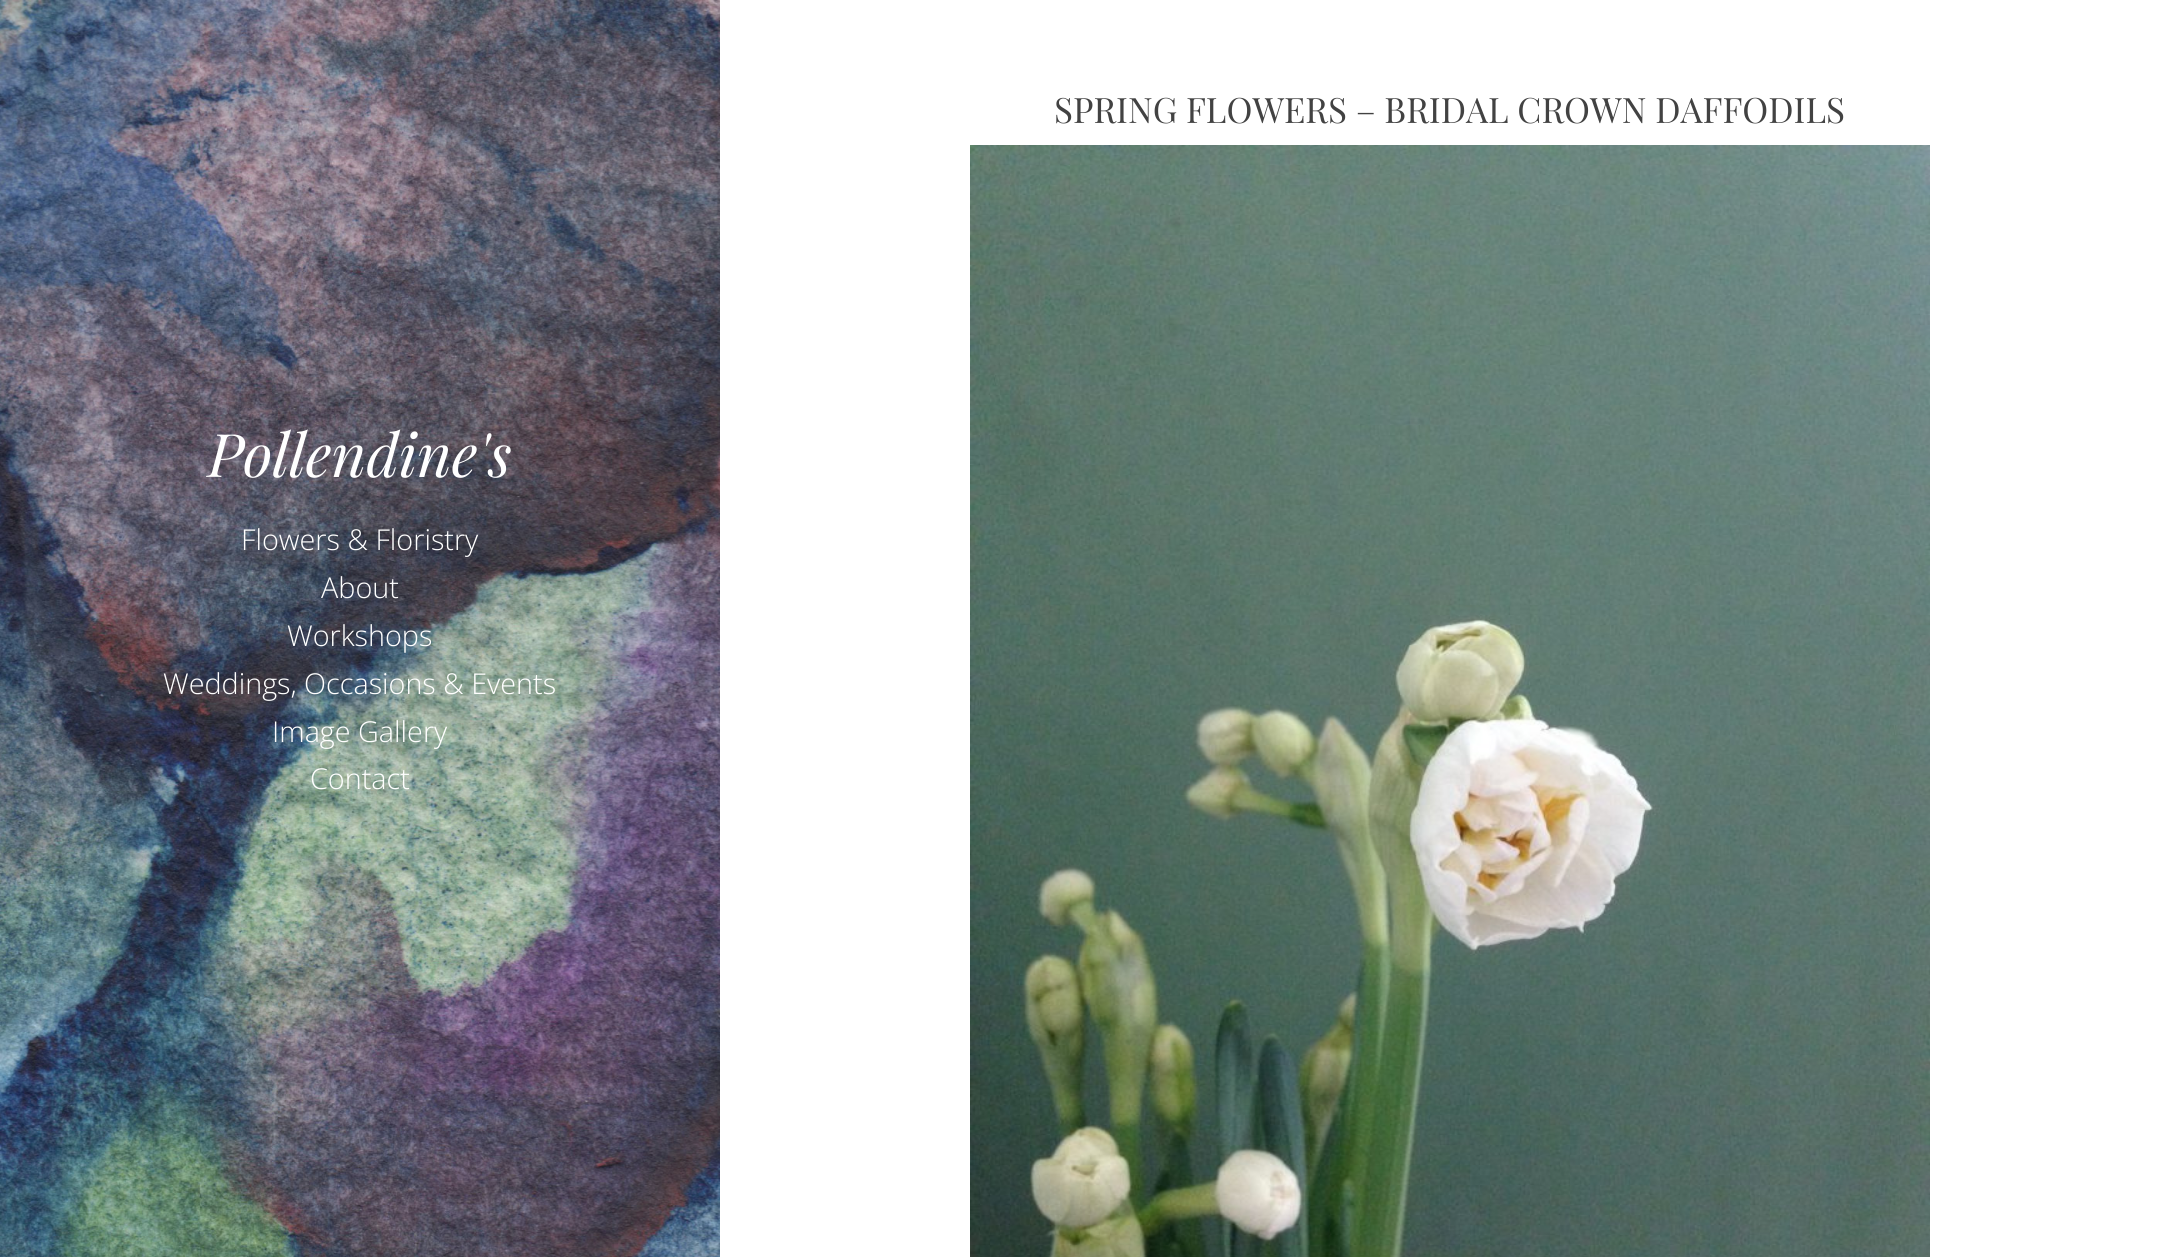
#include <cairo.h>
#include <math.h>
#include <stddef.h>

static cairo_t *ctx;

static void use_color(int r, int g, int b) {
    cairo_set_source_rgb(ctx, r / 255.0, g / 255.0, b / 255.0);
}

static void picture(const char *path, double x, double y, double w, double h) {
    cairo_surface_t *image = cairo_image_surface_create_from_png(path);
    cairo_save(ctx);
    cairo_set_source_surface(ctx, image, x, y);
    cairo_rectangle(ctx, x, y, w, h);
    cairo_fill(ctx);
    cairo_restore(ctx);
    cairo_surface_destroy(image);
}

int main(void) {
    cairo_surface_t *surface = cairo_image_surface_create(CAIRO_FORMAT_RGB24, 2180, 1257);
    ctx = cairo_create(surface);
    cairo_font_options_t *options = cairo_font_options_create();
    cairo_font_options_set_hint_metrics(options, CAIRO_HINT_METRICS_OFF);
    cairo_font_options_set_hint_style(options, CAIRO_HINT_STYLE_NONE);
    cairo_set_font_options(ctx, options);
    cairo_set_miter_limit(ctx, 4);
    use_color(255, 255, 255);
    cairo_paint(ctx);
    cairo_select_font_face(ctx, "Playfair Display", CAIRO_FONT_SLANT_NORMAL, CAIRO_FONT_WEIGHT_NORMAL);
    cairo_set_font_size(ctx, 35);
    use_color(66, 66, 66);
    cairo_move_to(ctx, 1054, 123);
    cairo_show_text(ctx, "SPRING FLOWERS – BRIDAL CROWN DAFFODILS");
    picture("img1.png", 970, 145, 960, 1112);
    picture("img2.png", 0, 0, 720, 1257);
    cairo_select_font_face(ctx, "Playfair Display", CAIRO_FONT_SLANT_ITALIC, CAIRO_FONT_WEIGHT_NORMAL);
    cairo_set_font_size(ctx, 60);
    use_color(255, 255, 255);
    cairo_move_to(ctx, 208, 477);
    cairo_show_text(ctx, "Pollendine's");
    cairo_select_font_face(ctx, "Open Sans Light", CAIRO_FONT_SLANT_NORMAL, CAIRO_FONT_WEIGHT_NORMAL);
    cairo_set_font_size(ctx, 28.75);
    cairo_move_to(ctx, 241, 550);
    cairo_show_text(ctx, "Flowers & Floristry");
    cairo_move_to(ctx, 321, 598);
    cairo_show_text(ctx, "About");
    cairo_move_to(ctx, 287, 646);
    cairo_show_text(ctx, "Workshops");
    cairo_move_to(ctx, 163, 694);
    cairo_show_text(ctx, "Weddings, Occasions & Events");
    cairo_move_to(ctx, 272, 742);
    cairo_show_text(ctx, "Image Gallery");
    cairo_move_to(ctx, 310, 789);
    cairo_show_text(ctx, "Contact");
    cairo_surface_write_to_png(surface, "result.png");
    cairo_font_options_destroy(options);
    cairo_destroy(ctx);
    cairo_surface_destroy(surface);
    return 0;
}
